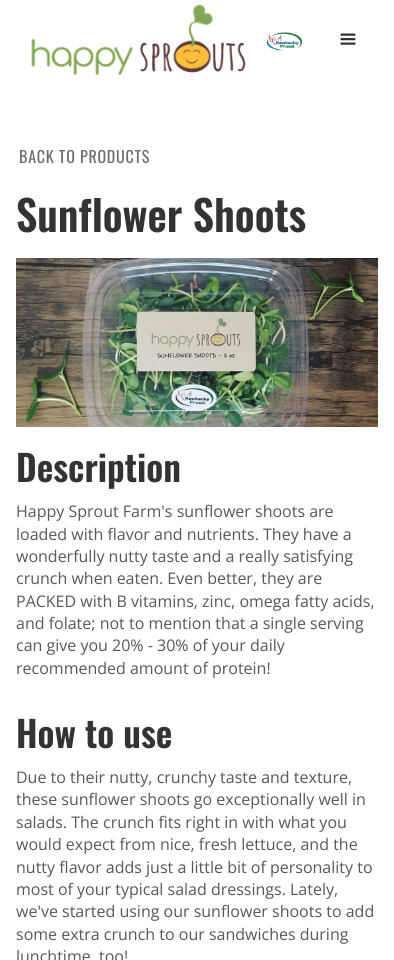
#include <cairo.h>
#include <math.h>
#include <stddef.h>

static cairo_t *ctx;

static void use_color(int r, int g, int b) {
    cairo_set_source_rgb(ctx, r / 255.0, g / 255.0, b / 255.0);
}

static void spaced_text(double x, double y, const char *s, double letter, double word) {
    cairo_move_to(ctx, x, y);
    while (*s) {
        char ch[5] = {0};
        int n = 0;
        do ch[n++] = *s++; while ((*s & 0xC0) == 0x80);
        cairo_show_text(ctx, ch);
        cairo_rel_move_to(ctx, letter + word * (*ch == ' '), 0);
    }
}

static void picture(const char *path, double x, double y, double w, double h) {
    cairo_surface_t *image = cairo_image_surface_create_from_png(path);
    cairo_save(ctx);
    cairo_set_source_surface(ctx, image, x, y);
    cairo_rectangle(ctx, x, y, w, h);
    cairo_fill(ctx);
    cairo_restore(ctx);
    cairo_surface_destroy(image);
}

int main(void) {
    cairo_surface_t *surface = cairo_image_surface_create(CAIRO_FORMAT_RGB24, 394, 960);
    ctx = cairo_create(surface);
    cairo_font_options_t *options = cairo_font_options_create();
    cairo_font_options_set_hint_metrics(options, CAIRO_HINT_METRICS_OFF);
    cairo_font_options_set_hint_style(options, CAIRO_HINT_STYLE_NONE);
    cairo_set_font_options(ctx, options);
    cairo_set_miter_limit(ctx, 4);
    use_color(255, 255, 255);
    cairo_paint(ctx);
    picture("img1.png", 31, 4, 215, 72);
    picture("img2.png", 267, 32, 35, 19);
    picture("img3.png", 340, 33, 16, 12);
    cairo_select_font_face(ctx, "Oswald", CAIRO_FONT_SLANT_NORMAL, CAIRO_FONT_WEIGHT_NORMAL);
    cairo_set_font_size(ctx, 16);
    use_color(110, 110, 110);
    spaced_text(19, 163, "BACK TO PRODUCTS", 0.75, 0);
    cairo_select_font_face(ctx, "Oswald SemiBold", CAIRO_FONT_SLANT_NORMAL, CAIRO_FONT_WEIGHT_NORMAL);
    cairo_set_font_size(ctx, 42);
    use_color(51, 51, 51);
    cairo_move_to(ctx, 16, 232);
    cairo_show_text(ctx, "Sunflower Shoots");
    picture("img4.png", 16, 258, 362, 169);
    cairo_set_font_size(ctx, 36);
    cairo_move_to(ctx, 16, 482);
    cairo_show_text(ctx, "Description");
    cairo_select_font_face(ctx, "Open Sans", CAIRO_FONT_SLANT_NORMAL, CAIRO_FONT_WEIGHT_NORMAL);
    cairo_set_font_size(ctx, 16);
    use_color(88, 88, 88);
    cairo_move_to(ctx, 16, 517);
    cairo_show_text(ctx, "Happy Sprout Farm's sunflower shoots are");
    cairo_move_to(ctx, 16, 540);
    cairo_show_text(ctx, "loaded with flavor and nutrients. They have a");
    cairo_move_to(ctx, 16, 562);
    cairo_show_text(ctx, "wonderfully nutty taste and a really satisfying");
    cairo_move_to(ctx, 16, 584);
    cairo_show_text(ctx, "crunch when eaten. Even better, they are");
    cairo_move_to(ctx, 16, 607);
    cairo_show_text(ctx, "PACKED with B vitamins, zinc, omega fatty acids,");
    cairo_move_to(ctx, 16, 629);
    cairo_show_text(ctx, "and folate; not to mention that a single serving");
    cairo_move_to(ctx, 16, 651);
    cairo_show_text(ctx, "can give you 20% - 30% of your daily");
    cairo_move_to(ctx, 16, 674);
    cairo_show_text(ctx, "recommended amount of protein!");
    cairo_select_font_face(ctx, "Oswald SemiBold", CAIRO_FONT_SLANT_NORMAL, CAIRO_FONT_WEIGHT_NORMAL);
    cairo_set_font_size(ctx, 36);
    use_color(51, 51, 51);
    cairo_move_to(ctx, 16, 748);
    cairo_show_text(ctx, "How to use");
    cairo_select_font_face(ctx, "Open Sans", CAIRO_FONT_SLANT_NORMAL, CAIRO_FONT_WEIGHT_NORMAL);
    cairo_set_font_size(ctx, 16);
    use_color(88, 88, 88);
    cairo_move_to(ctx, 16, 783);
    cairo_show_text(ctx, "Due to their nutty, crunchy taste and texture,");
    cairo_move_to(ctx, 16, 805);
    cairo_show_text(ctx, "these sunflower shoots go exceptionally well in");
    cairo_move_to(ctx, 16, 828);
    cairo_show_text(ctx, "salads. The crunch fits right in with what you");
    cairo_move_to(ctx, 16, 850);
    cairo_show_text(ctx, "would expect from nice, fresh lettuce, and the");
    cairo_move_to(ctx, 16, 873);
    cairo_show_text(ctx, "nutty flavor adds just a little bit of personality to");
    cairo_move_to(ctx, 16, 895);
    cairo_show_text(ctx, "most of your typical salad dressings. Lately,");
    cairo_move_to(ctx, 16, 917);
    cairo_show_text(ctx, "we've started using our sunflower shoots to add");
    cairo_move_to(ctx, 16, 940);
    cairo_show_text(ctx, "some extra crunch to our sandwiches during");
    cairo_move_to(ctx, 16, 962);
    cairo_show_text(ctx, "lunchtime, too!");
    cairo_surface_write_to_png(surface, "result.png");
    cairo_font_options_destroy(options);
    cairo_destroy(ctx);
    cairo_surface_destroy(surface);
    return 0;
}
